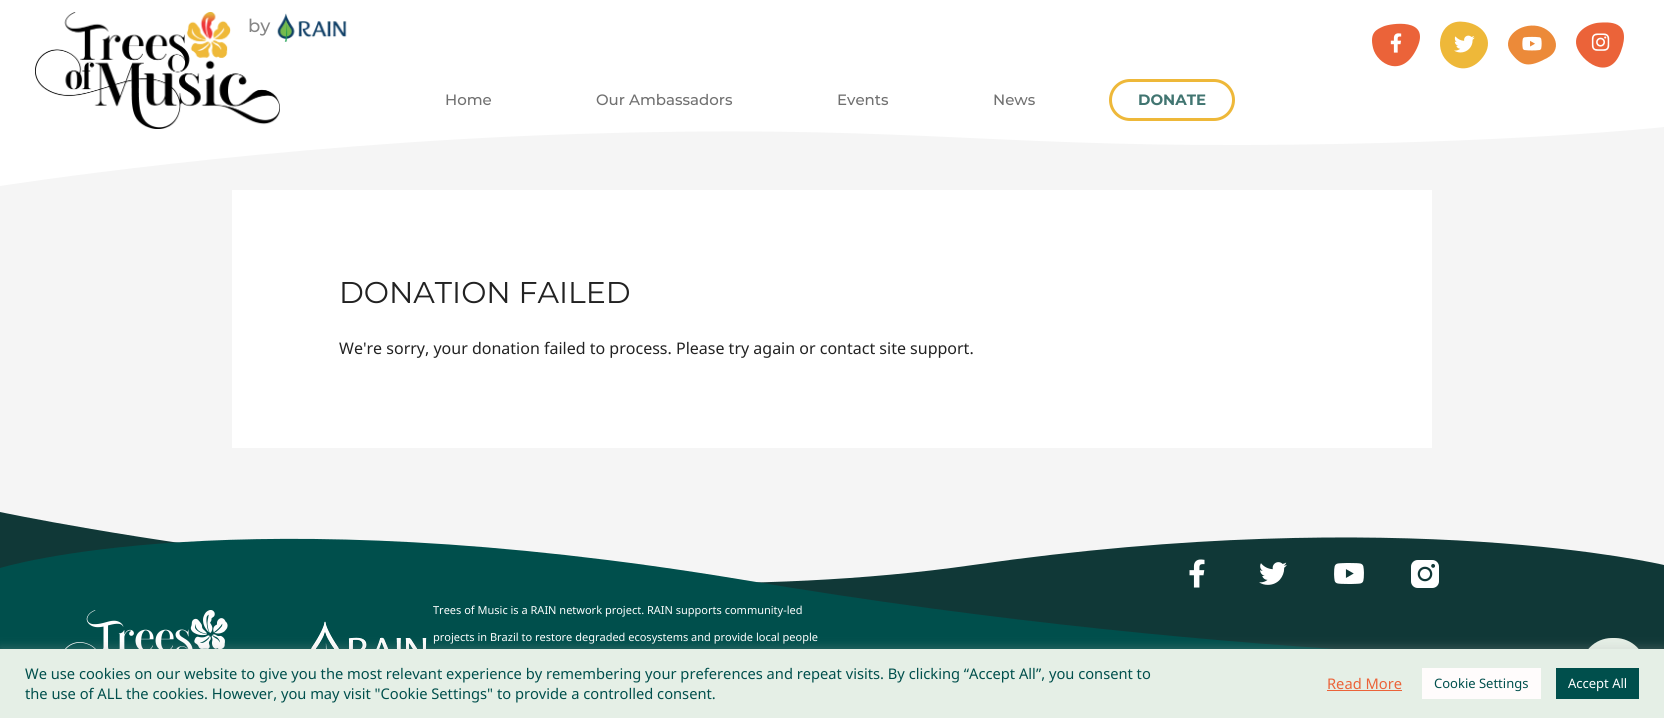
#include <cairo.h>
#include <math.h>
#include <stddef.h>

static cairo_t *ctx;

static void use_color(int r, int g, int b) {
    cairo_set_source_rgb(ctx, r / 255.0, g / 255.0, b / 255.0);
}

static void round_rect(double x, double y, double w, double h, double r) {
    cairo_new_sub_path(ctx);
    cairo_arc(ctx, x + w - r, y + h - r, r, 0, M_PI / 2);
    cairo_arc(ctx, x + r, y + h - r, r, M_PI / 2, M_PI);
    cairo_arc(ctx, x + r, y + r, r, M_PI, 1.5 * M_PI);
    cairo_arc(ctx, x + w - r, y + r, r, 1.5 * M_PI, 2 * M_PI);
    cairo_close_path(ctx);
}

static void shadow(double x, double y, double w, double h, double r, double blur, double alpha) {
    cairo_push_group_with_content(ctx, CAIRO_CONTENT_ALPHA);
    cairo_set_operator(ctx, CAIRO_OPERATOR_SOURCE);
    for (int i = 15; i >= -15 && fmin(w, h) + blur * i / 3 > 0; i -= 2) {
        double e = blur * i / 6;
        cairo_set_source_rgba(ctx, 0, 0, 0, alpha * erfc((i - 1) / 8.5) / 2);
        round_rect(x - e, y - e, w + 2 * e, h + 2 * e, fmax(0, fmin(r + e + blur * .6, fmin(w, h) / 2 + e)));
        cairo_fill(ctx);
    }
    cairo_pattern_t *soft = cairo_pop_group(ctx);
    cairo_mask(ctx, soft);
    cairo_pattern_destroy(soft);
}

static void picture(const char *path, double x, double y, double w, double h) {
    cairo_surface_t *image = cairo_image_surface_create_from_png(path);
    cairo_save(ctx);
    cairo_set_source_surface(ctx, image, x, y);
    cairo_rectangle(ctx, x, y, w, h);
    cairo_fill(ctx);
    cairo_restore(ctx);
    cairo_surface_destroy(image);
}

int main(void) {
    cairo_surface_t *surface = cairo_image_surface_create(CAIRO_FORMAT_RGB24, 1664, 718);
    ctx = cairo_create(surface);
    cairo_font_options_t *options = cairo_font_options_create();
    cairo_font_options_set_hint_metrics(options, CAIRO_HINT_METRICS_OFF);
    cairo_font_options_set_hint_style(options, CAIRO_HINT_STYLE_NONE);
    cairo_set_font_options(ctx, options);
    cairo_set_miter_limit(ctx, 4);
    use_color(245, 245, 245);
    cairo_paint(ctx);
    use_color(255, 255, 255);
    cairo_new_path(ctx);
    cairo_move_to(ctx, 0, -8);
    cairo_line_to(ctx, 0, 186);
    cairo_curve_to(ctx, 0, 186, 265, 144, 576, 134);
    cairo_curve_to(ctx, 888, 124, 981, 146, 1246, 145);
    cairo_curve_to(ctx, 1511, 144, 1664, 127, 1664, 127);
    cairo_line_to(ctx, 1664, -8);
    cairo_close_path(ctx);
    cairo_fill(ctx);
    picture("img1.png", 35, 12, 245, 117);
    cairo_select_font_face(ctx, "Montserrat Medium", CAIRO_FONT_SLANT_NORMAL, CAIRO_FONT_WEIGHT_NORMAL);
    cairo_set_font_size(ctx, 18);
    use_color(134, 134, 134);
    cairo_move_to(ctx, 248, 32);
    cairo_show_text(ctx, "by");
    picture("img2.png", 277, 13, 70, 29);
    picture("img3.png", 1372, 23, 48, 44);
    picture("img4.png", 1440, 21, 48, 48);
    picture("img5.png", 1508, 25, 48, 40);
    picture("img6.png", 1576, 22, 48, 46);
    cairo_set_font_size(ctx, 15);
    use_color(112, 112, 112);
    cairo_move_to(ctx, 445, 105);
    cairo_show_text(ctx, "Home");
    cairo_move_to(ctx, 596, 105);
    cairo_show_text(ctx, "Our Ambassadors");
    cairo_move_to(ctx, 837, 105);
    cairo_show_text(ctx, "Events");
    cairo_move_to(ctx, 993, 105);
    cairo_show_text(ctx, "News");
    round_rect(1110.5, 80.5, 123, 39, 19.5);
    use_color(238, 184, 57);
    cairo_set_line_width(ctx, 3);
    cairo_stroke(ctx);
    cairo_select_font_face(ctx, "Montserrat", CAIRO_FONT_SLANT_NORMAL, CAIRO_FONT_WEIGHT_BOLD);
    use_color(65, 117, 113);
    cairo_move_to(ctx, 1138, 105);
    cairo_show_text(ctx, "DONATE");
    use_color(255, 255, 255);
    cairo_rectangle(ctx, 232, 190, 1200, 258);
    cairo_fill(ctx);
    cairo_select_font_face(ctx, "Montserrat", CAIRO_FONT_SLANT_NORMAL, CAIRO_FONT_WEIGHT_NORMAL);
    cairo_set_font_size(ctx, 30);
    use_color(34, 34, 34);
    cairo_move_to(ctx, 339, 303);
    cairo_show_text(ctx, "DONATION FAILED");
    cairo_select_font_face(ctx, "Noto Sans", CAIRO_FONT_SLANT_NORMAL, CAIRO_FONT_WEIGHT_NORMAL);
    cairo_set_font_size(ctx, 16);
    cairo_move_to(ctx, 339, 354);
    cairo_show_text(ctx, "We're sorry, your donation failed to process. Please try again or contact site support.");
    use_color(16, 56, 55);
    cairo_new_path(ctx);
    cairo_move_to(ctx, 0, 512);
    cairo_curve_to(ctx, 0, 512, 542, 627, 973, 565);
    cairo_curve_to(ctx, 1404, 503, 1664, 565, 1664, 565);
    cairo_line_to(ctx, 1664, 697);
    cairo_line_to(ctx, 0, 697);
    cairo_close_path(ctx);
    cairo_fill(ctx);
    use_color(0, 79, 76);
    cairo_new_path(ctx);
    cairo_move_to(ctx, 0, 568);
    cairo_curve_to(ctx, 0, 568, 235, 495, 744, 580);
    cairo_curve_to(ctx, 1252, 666, 1664, 661, 1664, 661);
    cairo_line_to(ctx, 1664, 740);
    cairo_line_to(ctx, 0, 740);
    cairo_close_path(ctx);
    cairo_fill(ctx);
    picture("img7.png", 1189, 559, 16, 29);
    picture("img8.png", 1259, 562, 28, 23);
    picture("img9.png", 1334, 563, 30, 21);
    picture("img10.png", 1411, 560, 28, 28);
    picture("img11.png", 65, 610, 163, 39);
    picture("img12.png", 311, 621, 116, 28);
    cairo_set_font_size(ctx, 11);
    use_color(255, 255, 255);
    cairo_move_to(ctx, 433, 614);
    cairo_show_text(ctx, "Trees of Music is a RAIN network project. RAIN supports community-led");
    cairo_move_to(ctx, 433, 641);
    cairo_show_text(ctx, "projects in Brazil to restore degraded ecosystems and provide local people");
    use_color(229, 239, 230);
    round_rect(1581, 638, 65, 62, 31);
    cairo_fill(ctx);
    use_color(172, 171, 171);
    shadow(0, 648, 1664, 69, 0, 5, 0.3);
    use_color(229, 239, 230);
    cairo_rectangle(ctx, 0, 649, 1664, 69);
    cairo_fill(ctx);
    cairo_set_font_size(ctx, 14.67);
    use_color(0, 79, 76);
    cairo_move_to(ctx, 25, 679);
    cairo_show_text(ctx, "We use cookies on our website to give you the most relevant experience by remembering your preferences and repeat visits. By clicking “Accept All”, you consent to");
    cairo_move_to(ctx, 25, 699);
    cairo_show_text(ctx, "the use of ALL the cookies. However, you may visit \"Cookie Settings\" to provide a controlled consent.");
    use_color(235, 99, 57);
    cairo_move_to(ctx, 1327, 689);
    cairo_show_text(ctx, "Read More");
    cairo_rectangle(ctx, 1327, 690, 75, 1);
    cairo_fill(ctx);
    use_color(255, 252, 252);
    cairo_rectangle(ctx, 1422, 668, 119, 31);
    cairo_fill(ctx);
    cairo_set_font_size(ctx, 13);
    use_color(0, 79, 76);
    cairo_move_to(ctx, 1434, 688);
    cairo_show_text(ctx, "Cookie Settings");
    cairo_rectangle(ctx, 1556, 668, 83, 31);
    cairo_fill(ctx);
    use_color(255, 255, 255);
    cairo_move_to(ctx, 1568, 688);
    cairo_show_text(ctx, "Accept All");
    cairo_surface_write_to_png(surface, "result.png");
    cairo_font_options_destroy(options);
    cairo_destroy(ctx);
    cairo_surface_destroy(surface);
    return 0;
}
